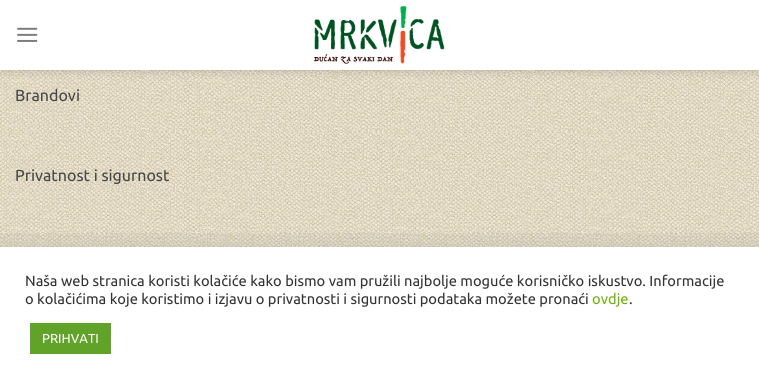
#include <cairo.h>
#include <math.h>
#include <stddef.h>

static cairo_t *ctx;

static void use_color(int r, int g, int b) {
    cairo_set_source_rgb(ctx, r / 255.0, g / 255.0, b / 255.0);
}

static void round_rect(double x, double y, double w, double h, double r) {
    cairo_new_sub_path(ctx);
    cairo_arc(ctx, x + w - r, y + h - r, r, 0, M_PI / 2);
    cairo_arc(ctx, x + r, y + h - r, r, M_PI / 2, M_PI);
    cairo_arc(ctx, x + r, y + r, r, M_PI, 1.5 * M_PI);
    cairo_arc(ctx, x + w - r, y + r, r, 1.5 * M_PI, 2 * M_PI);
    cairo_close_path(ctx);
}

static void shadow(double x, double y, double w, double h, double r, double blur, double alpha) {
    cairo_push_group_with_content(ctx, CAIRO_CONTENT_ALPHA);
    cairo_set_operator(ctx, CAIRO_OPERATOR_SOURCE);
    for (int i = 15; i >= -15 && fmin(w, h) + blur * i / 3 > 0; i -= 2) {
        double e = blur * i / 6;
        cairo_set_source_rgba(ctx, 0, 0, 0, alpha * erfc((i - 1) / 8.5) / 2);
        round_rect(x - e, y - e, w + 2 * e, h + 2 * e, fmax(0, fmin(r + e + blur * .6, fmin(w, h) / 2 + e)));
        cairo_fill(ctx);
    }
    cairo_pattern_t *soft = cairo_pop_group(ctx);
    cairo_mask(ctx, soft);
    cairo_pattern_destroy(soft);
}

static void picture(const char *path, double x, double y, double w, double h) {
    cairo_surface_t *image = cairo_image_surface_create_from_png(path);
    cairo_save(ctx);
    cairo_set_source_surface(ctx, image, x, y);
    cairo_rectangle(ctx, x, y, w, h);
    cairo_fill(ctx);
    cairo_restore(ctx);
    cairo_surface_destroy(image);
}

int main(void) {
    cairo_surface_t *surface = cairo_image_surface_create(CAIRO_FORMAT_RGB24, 759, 384);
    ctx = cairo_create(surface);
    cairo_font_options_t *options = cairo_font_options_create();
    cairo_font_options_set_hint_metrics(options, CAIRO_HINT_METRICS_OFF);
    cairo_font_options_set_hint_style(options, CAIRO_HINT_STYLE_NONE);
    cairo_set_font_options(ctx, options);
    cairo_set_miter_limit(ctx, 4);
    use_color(255, 255, 255);
    cairo_paint(ctx);
    picture("img3.png", 0, 70, 759, 163);
    use_color(0, 0, 0);
    shadow(1, 1, 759, 70, 0, 5, 0.15);
    use_color(255, 255, 255);
    cairo_rectangle(ctx, 0, 0, 759, 70);
    cairo_fill(ctx);
    picture("img1.png", 17, 27, 21, 15);
    picture("img2.png", 314, 6, 131, 58);
    cairo_set_source_rgba(ctx, 0.478, 0.478, 0.49, 0.1);
    cairo_rectangle(ctx, 15, 70, 729, 1);
    cairo_fill(ctx);
    cairo_select_font_face(ctx, "Ubuntu", CAIRO_FONT_SLANT_NORMAL, CAIRO_FONT_WEIGHT_NORMAL);
    cairo_set_font_size(ctx, 16);
    use_color(71, 71, 71);
    cairo_move_to(ctx, 15, 101);
    cairo_show_text(ctx, "Brandovi");
    cairo_move_to(ctx, 15, 181);
    cairo_show_text(ctx, "Privatnost i sigurnost");
    picture("img4.png", 0, 233, 759, 14);
    use_color(172, 171, 171);
    shadow(0, 246, 759, 137, 0, 5, 0.3);
    use_color(255, 255, 255);
    cairo_rectangle(ctx, 0, 247, 759, 137);
    cairo_fill(ctx);
    cairo_set_font_size(ctx, 14.65);
    use_color(51, 51, 51);
    cairo_move_to(ctx, 25, 286);
    cairo_show_text(ctx, "Naša web stranica koristi kolačiće kako bismo vam pružili najbolje moguće korisničko iskustvo. Informacije");
    cairo_move_to(ctx, 25, 304);
    cairo_show_text(ctx, "o kolačićima koje koristimo i izjavu o privatnosti i sigurnosti podataka možete pronaći");
    use_color(111, 177, 8);
    cairo_move_to(ctx, 592, 304);
    cairo_show_text(ctx, "ovdje");
    use_color(51, 51, 51);
    cairo_move_to(ctx, 629, 304);
    cairo_show_text(ctx, ".");
    use_color(97, 162, 41);
    cairo_rectangle(ctx, 30, 323, 81, 31);
    cairo_fill(ctx);
    cairo_set_font_size(ctx, 13);
    use_color(255, 255, 255);
    cairo_move_to(ctx, 42, 343);
    cairo_show_text(ctx, "PRIHVATI");
    cairo_surface_write_to_png(surface, "result.png");
    cairo_font_options_destroy(options);
    cairo_destroy(ctx);
    cairo_surface_destroy(surface);
    return 0;
}
